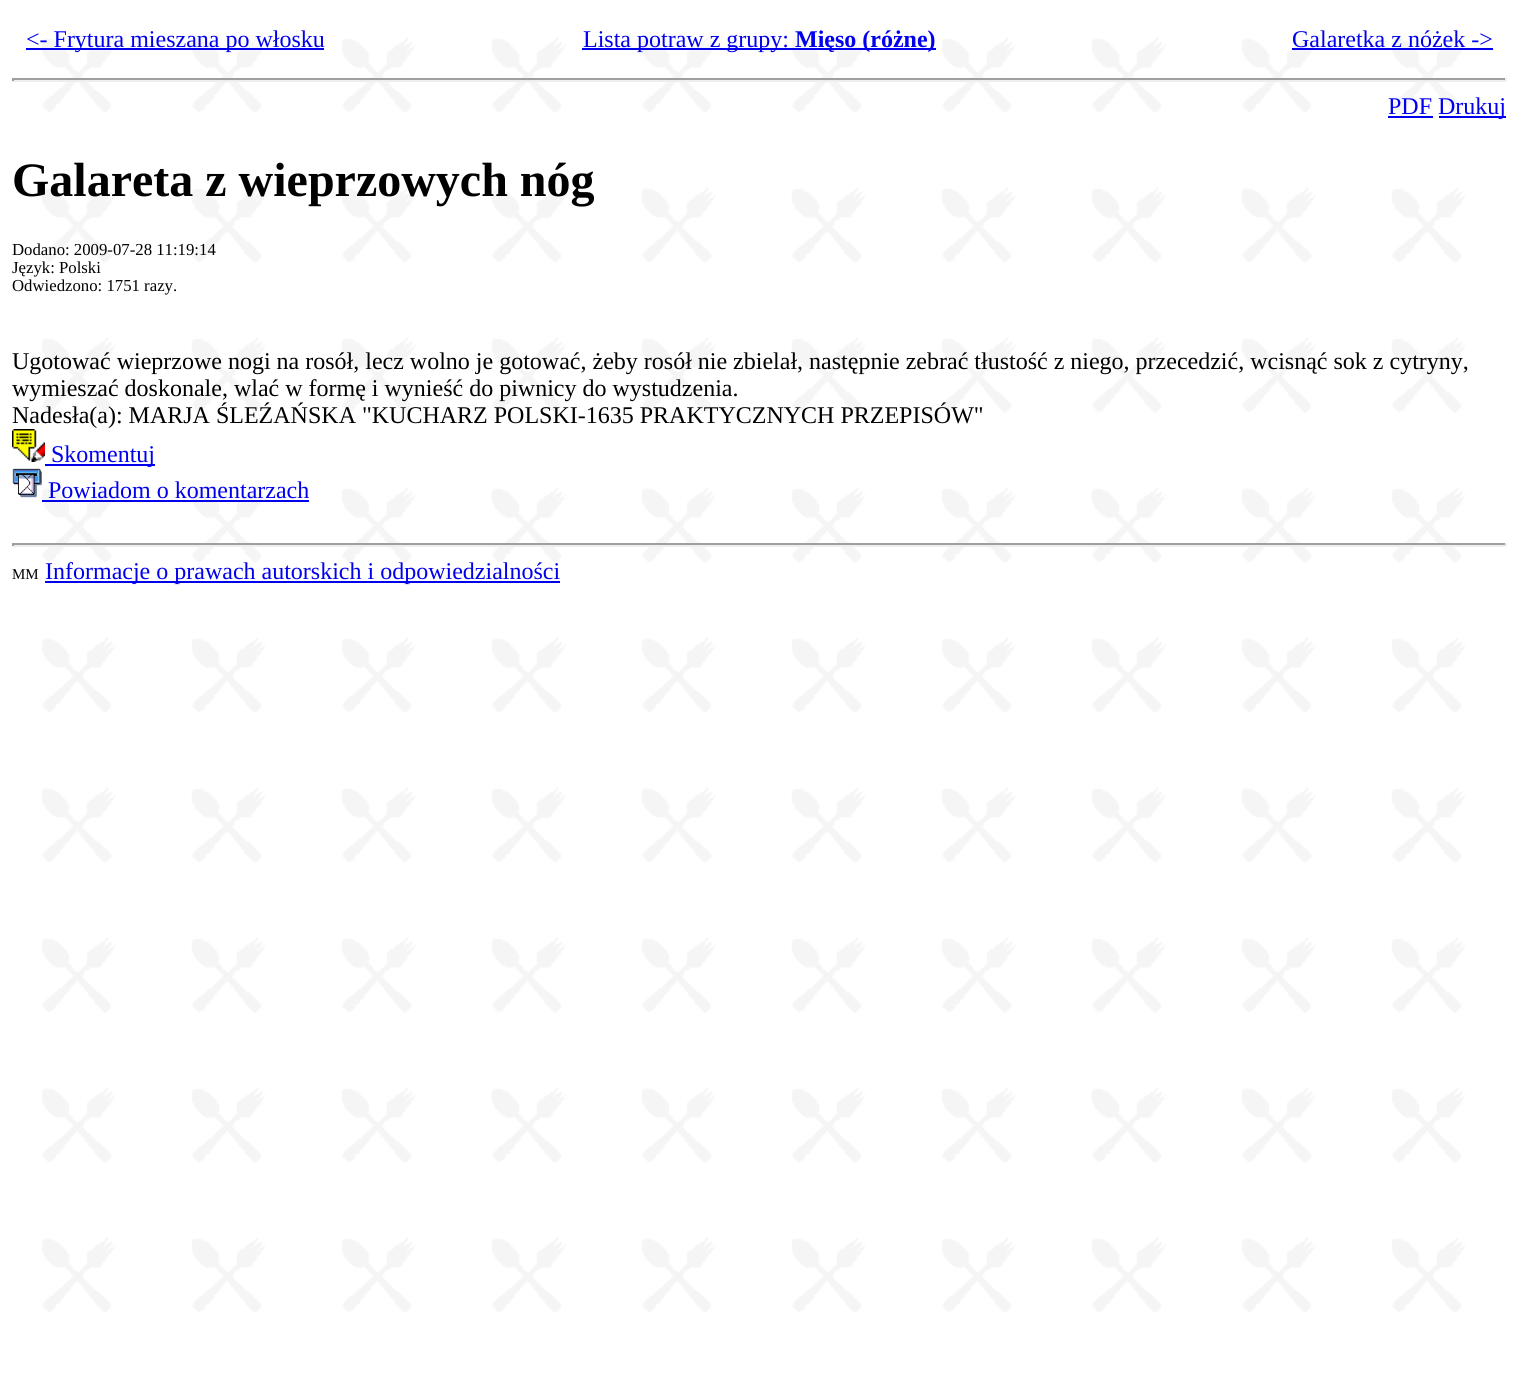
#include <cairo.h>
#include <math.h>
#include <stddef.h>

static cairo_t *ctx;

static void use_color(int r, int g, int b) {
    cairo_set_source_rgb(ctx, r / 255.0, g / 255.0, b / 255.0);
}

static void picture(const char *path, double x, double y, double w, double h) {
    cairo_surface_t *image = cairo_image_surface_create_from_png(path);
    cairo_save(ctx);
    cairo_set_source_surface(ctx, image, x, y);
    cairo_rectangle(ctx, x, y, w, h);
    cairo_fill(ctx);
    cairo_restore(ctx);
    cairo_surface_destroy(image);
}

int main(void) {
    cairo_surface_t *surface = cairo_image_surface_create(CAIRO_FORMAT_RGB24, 1517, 1385);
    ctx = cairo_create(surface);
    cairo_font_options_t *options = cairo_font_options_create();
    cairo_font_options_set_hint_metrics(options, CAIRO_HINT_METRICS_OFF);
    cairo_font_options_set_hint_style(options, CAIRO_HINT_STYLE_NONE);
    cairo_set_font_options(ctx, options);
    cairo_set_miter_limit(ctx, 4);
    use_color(255, 255, 255);
    cairo_paint(ctx);
    picture("img1.png", 42, 37, 1424, 1276);
    use_color(0, 0, 238);
    cairo_rectangle(ctx, 26, 48, 298, 2);
    cairo_fill(ctx);
    cairo_select_font_face(ctx, "Liberation Serif", CAIRO_FONT_SLANT_NORMAL, CAIRO_FONT_WEIGHT_NORMAL);
    cairo_set_font_size(ctx, 24);
    cairo_move_to(ctx, 26, 47);
    cairo_show_text(ctx, "<- Frytura mieszana po włosku");
    cairo_rectangle(ctx, 582, 48, 354, 2);
    cairo_fill(ctx);
    cairo_move_to(ctx, 583, 47);
    cairo_show_text(ctx, "Lista potraw z grupy:");
    cairo_select_font_face(ctx, "Liberation Serif", CAIRO_FONT_SLANT_NORMAL, CAIRO_FONT_WEIGHT_BOLD);
    cairo_move_to(ctx, 795, 47);
    cairo_show_text(ctx, "Mięso (różne)");
    cairo_select_font_face(ctx, "Liberation Serif", CAIRO_FONT_SLANT_NORMAL, CAIRO_FONT_WEIGHT_NORMAL);
    cairo_move_to(ctx, 1292, 47);
    cairo_show_text(ctx, "Galaretka z nóżek ->");
    cairo_rectangle(ctx, 1292, 48, 201, 2);
    cairo_fill(ctx);
    use_color(159, 159, 159);
    cairo_rectangle(ctx, 12, 78, 1494, 2);
    cairo_fill(ctx);
    use_color(238, 238, 238);
    cairo_rectangle(ctx, 1505, 78, 2, 3);
    cairo_fill(ctx);
    cairo_rectangle(ctx, 12, 80, 1494, 2);
    cairo_fill(ctx);
    use_color(159, 159, 159);
    cairo_rectangle(ctx, 12, 78, 2, 3);
    cairo_fill(ctx);
    use_color(0, 0, 238);
    cairo_move_to(ctx, 1388, 114);
    cairo_show_text(ctx, "PDF");
    cairo_rectangle(ctx, 1388, 116, 45, 2);
    cairo_fill(ctx);
    cairo_rectangle(ctx, 1439, 116, 67, 2);
    cairo_fill(ctx);
    cairo_move_to(ctx, 1438, 114);
    cairo_show_text(ctx, "Drukuj");
    cairo_select_font_face(ctx, "Liberation Serif", CAIRO_FONT_SLANT_NORMAL, CAIRO_FONT_WEIGHT_BOLD);
    cairo_set_font_size(ctx, 48);
    use_color(0, 0, 0);
    cairo_move_to(ctx, 12, 196);
    cairo_show_text(ctx, "Galareta z wieprzowych nóg");
    cairo_select_font_face(ctx, "Liberation Serif", CAIRO_FONT_SLANT_NORMAL, CAIRO_FONT_WEIGHT_NORMAL);
    cairo_set_font_size(ctx, 16.75);
    cairo_move_to(ctx, 12, 255);
    cairo_show_text(ctx, "Dodano: 2009-07-28 11:19:14");
    cairo_move_to(ctx, 12, 273);
    cairo_show_text(ctx, "Język: Polski");
    cairo_move_to(ctx, 12, 291);
    cairo_show_text(ctx, "Odwiedzono: 1751 razy.");
    cairo_set_font_size(ctx, 24);
    cairo_move_to(ctx, 12, 369);
    cairo_show_text(ctx, "Ugotować wieprzowe nogi na rosół, lecz wolno je gotować, żeby rosół nie zbielał, następnie zebrać tłustość z niego, przecedzić, wcisnąć sok z cytryny,");
    cairo_move_to(ctx, 12, 396);
    cairo_show_text(ctx, "wymieszać doskonale, wlać w formę i wynieść do piwnicy do wystudzenia.");
    cairo_move_to(ctx, 12, 423);
    cairo_show_text(ctx, "Nadesła(a): MARJA ŚLEŹAŃSKA \"KUCHARZ POLSKI-1635 PRAKTYCZNYCH PRZEPISÓW\"");
    picture("img2.png", 12, 429, 33, 33);
    use_color(0, 0, 238);
    cairo_rectangle(ctx, 45, 464, 110, 2);
    cairo_fill(ctx);
    cairo_move_to(ctx, 51, 462);
    cairo_show_text(ctx, "Skomentuj");
    picture("img3.png", 12, 468, 30, 30);
    cairo_move_to(ctx, 48, 498);
    cairo_show_text(ctx, "Powiadom o komentarzach");
    cairo_rectangle(ctx, 42, 500, 267, 2);
    cairo_fill(ctx);
    use_color(159, 159, 159);
    cairo_rectangle(ctx, 12, 543, 1494, 2);
    cairo_fill(ctx);
    use_color(238, 238, 238);
    cairo_rectangle(ctx, 1505, 543, 2, 3);
    cairo_fill(ctx);
    cairo_rectangle(ctx, 12, 545, 1494, 2);
    cairo_fill(ctx);
    use_color(159, 159, 159);
    cairo_rectangle(ctx, 12, 543, 2, 3);
    cairo_fill(ctx);
    cairo_set_font_size(ctx, 15);
    use_color(0, 0, 0);
    cairo_move_to(ctx, 12, 579);
    cairo_show_text(ctx, "MM");
    use_color(0, 0, 238);
    cairo_rectangle(ctx, 45, 581, 515, 2);
    cairo_fill(ctx);
    cairo_set_font_size(ctx, 24);
    cairo_move_to(ctx, 45, 579);
    cairo_show_text(ctx, "Informacje o prawach autorskich i odpowiedzialności");
    cairo_surface_write_to_png(surface, "result.png");
    cairo_font_options_destroy(options);
    cairo_destroy(ctx);
    cairo_surface_destroy(surface);
    return 0;
}
